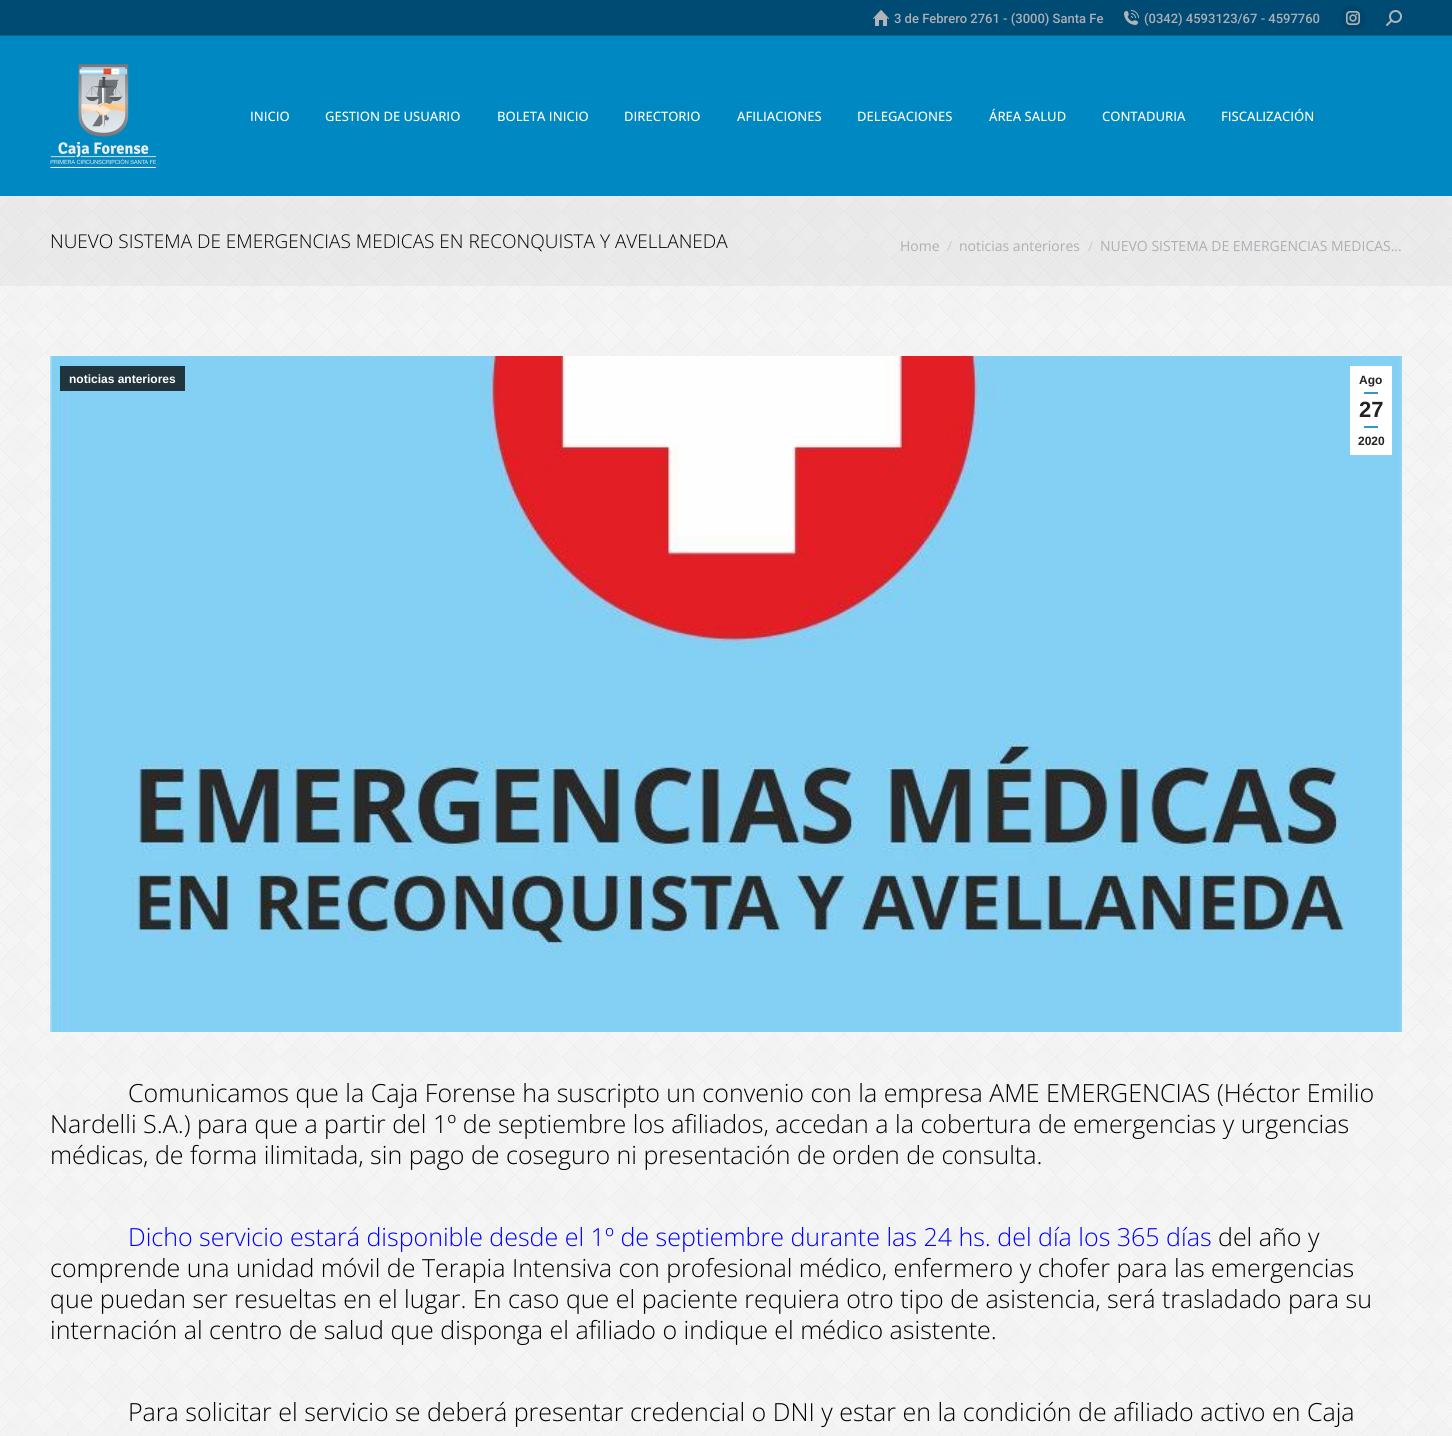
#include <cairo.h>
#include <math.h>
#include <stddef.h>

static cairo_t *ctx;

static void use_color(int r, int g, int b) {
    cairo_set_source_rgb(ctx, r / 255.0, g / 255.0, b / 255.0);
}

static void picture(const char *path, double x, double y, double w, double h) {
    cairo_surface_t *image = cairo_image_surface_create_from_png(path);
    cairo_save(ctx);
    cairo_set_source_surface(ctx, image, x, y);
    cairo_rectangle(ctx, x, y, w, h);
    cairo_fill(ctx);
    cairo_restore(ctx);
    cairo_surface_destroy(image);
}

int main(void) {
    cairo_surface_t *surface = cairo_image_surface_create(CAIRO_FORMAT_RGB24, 1452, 1436);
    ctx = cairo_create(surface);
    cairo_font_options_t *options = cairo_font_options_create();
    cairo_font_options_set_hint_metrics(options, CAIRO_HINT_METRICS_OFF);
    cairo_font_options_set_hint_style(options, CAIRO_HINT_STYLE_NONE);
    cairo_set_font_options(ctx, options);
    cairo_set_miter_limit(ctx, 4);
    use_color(255, 255, 255);
    cairo_paint(ctx);
    picture("img1.png", 0, 196, 1452, 1240);
    use_color(0, 136, 195);
    cairo_rectangle(ctx, 0, 36, 1452, 160);
    cairo_fill(ctx);
    use_color(0, 75, 116);
    cairo_rectangle(ctx, 0, 0, 1452, 35);
    cairo_fill(ctx);
    picture("img2.png", 873, 10, 16, 16);
    cairo_select_font_face(ctx, "Roboto Medium", CAIRO_FONT_SLANT_NORMAL, CAIRO_FONT_WEIGHT_NORMAL);
    cairo_set_font_size(ctx, 13);
    use_color(173, 175, 179);
    cairo_move_to(ctx, 894, 23);
    cairo_show_text(ctx, "3 de Febrero 2761 - (3000) Santa Fe");
    picture("img3.png", 1124, 10, 15, 15);
    cairo_move_to(ctx, 1144, 23);
    cairo_show_text(ctx, "(0342) 4593123/67 - 4597760");
    use_color(0, 70, 108);
    cairo_new_path(ctx);
    cairo_arc(ctx, 1353, 18, 13, 0, 2 * M_PI);
    cairo_fill(ctx);
    picture("img4.png", 1346, 11, 14, 14);
    picture("img5.png", 1386, 10, 16, 16);
    use_color(28, 95, 131);
    cairo_rectangle(ctx, 0, 35, 1452, 1);
    cairo_fill(ctx);
    picture("img6.png", 50, 64, 107, 104);
    cairo_select_font_face(ctx, "Open Sans Medium", CAIRO_FONT_SLANT_NORMAL, CAIRO_FONT_WEIGHT_NORMAL);
    use_color(255, 255, 255);
    cairo_move_to(ctx, 250, 121);
    cairo_show_text(ctx, "INICIO");
    cairo_move_to(ctx, 325, 121);
    cairo_show_text(ctx, "GESTION DE USUARIO");
    cairo_move_to(ctx, 497, 121);
    cairo_show_text(ctx, "BOLETA INICIO");
    cairo_move_to(ctx, 624, 121);
    cairo_show_text(ctx, "DIRECTORIO");
    cairo_move_to(ctx, 737, 121);
    cairo_show_text(ctx, "AFILIACIONES");
    cairo_move_to(ctx, 857, 121);
    cairo_show_text(ctx, "DELEGACIONES");
    cairo_move_to(ctx, 989, 121);
    cairo_show_text(ctx, "ÁREA SALUD");
    cairo_move_to(ctx, 1102, 121);
    cairo_show_text(ctx, "CONTADURIA");
    cairo_move_to(ctx, 1221, 121);
    cairo_show_text(ctx, "FISCALIZACIÓN");
    cairo_set_source_rgba(ctx, 0, 0, 0, 0.04);
    cairo_rectangle(ctx, 0, 196, 1452, 90);
    cairo_fill(ctx);
    cairo_select_font_face(ctx, "Open Sans Light", CAIRO_FONT_SLANT_NORMAL, CAIRO_FONT_WEIGHT_NORMAL);
    cairo_set_font_size(ctx, 19);
    use_color(0, 0, 0);
    cairo_move_to(ctx, 50, 248);
    cairo_show_text(ctx, "NUEVO SISTEMA DE EMERGENCIAS MEDICAS EN RECONQUISTA Y AVELLANEDA");
    cairo_select_font_face(ctx, "Open Sans", CAIRO_FONT_SLANT_NORMAL, CAIRO_FONT_WEIGHT_NORMAL);
    cairo_set_font_size(ctx, 14);
    use_color(173, 175, 179);
    cairo_move_to(ctx, 900, 251);
    cairo_show_text(ctx, "Home");
    use_color(203, 204, 206);
    cairo_move_to(ctx, 947, 251);
    cairo_show_text(ctx, "/");
    use_color(173, 175, 179);
    cairo_move_to(ctx, 959, 251);
    cairo_show_text(ctx, "noticias anteriores");
    use_color(203, 204, 206);
    cairo_move_to(ctx, 1088, 251);
    cairo_show_text(ctx, "/");
    use_color(173, 175, 179);
    cairo_move_to(ctx, 1100, 251);
    cairo_show_text(ctx, "NUEVO SISTEMA DE EMERGENCIAS MEDICAS…");
    picture("img7.png", 50, 356, 1352, 676);
    cairo_set_source_rgba(ctx, 0, 0, 0, 0.75);
    cairo_rectangle(ctx, 60, 366, 125, 25);
    cairo_fill(ctx);
    cairo_select_font_face(ctx, "Liberation Sans", CAIRO_FONT_SLANT_NORMAL, CAIRO_FONT_WEIGHT_BOLD);
    cairo_set_font_size(ctx, 12);
    use_color(255, 255, 255);
    cairo_move_to(ctx, 69, 383);
    cairo_show_text(ctx, "noticias anteriores");
    cairo_rectangle(ctx, 1350, 366, 42, 89);
    cairo_fill(ctx);
    use_color(34, 34, 34);
    cairo_move_to(ctx, 1359, 384);
    cairo_show_text(ctx, "Ago");
    use_color(46, 154, 201);
    cairo_rectangle(ctx, 1364, 392, 14, 2);
    cairo_fill(ctx);
    cairo_set_font_size(ctx, 22);
    use_color(34, 34, 34);
    cairo_move_to(ctx, 1359, 417);
    cairo_show_text(ctx, "27");
    use_color(46, 154, 201);
    cairo_rectangle(ctx, 1364, 426, 14, 2);
    cairo_fill(ctx);
    cairo_set_font_size(ctx, 12);
    use_color(34, 34, 34);
    cairo_move_to(ctx, 1358, 445);
    cairo_show_text(ctx, "2020");
    cairo_select_font_face(ctx, "Open Sans Light", CAIRO_FONT_SLANT_NORMAL, CAIRO_FONT_WEIGHT_NORMAL);
    cairo_set_font_size(ctx, 25);
    use_color(0, 0, 0);
    cairo_move_to(ctx, 128, 1102);
    cairo_show_text(ctx, "Comunicamos que la Caja Forense ha suscripto un convenio con la empresa AME EMERGENCIAS (Héctor Emilio");
    cairo_move_to(ctx, 50, 1133);
    cairo_show_text(ctx, "Nardelli S.A.) para que a partir del 1º de septiembre los afiliados, accedan a la cobertura de emergencias y urgencias");
    cairo_move_to(ctx, 50, 1164);
    cairo_show_text(ctx, "médicas, de forma ilimitada, sin pago de coseguro ni presentación de orden de consulta.");
    use_color(0, 0, 255);
    cairo_move_to(ctx, 128, 1246);
    cairo_show_text(ctx, "Dicho servicio estará disponible desde el 1º de septiembre durante las 24 hs. del día los 365 días");
    use_color(0, 0, 0);
    cairo_move_to(ctx, 1218, 1246);
    cairo_show_text(ctx, "del año y");
    cairo_move_to(ctx, 50, 1277);
    cairo_show_text(ctx, "comprende una unidad móvil de Terapia Intensiva con profesional médico, enfermero y chofer para las emergencias");
    cairo_move_to(ctx, 50, 1308);
    cairo_show_text(ctx, "que puedan ser resueltas en el lugar. En caso que el paciente requiera otro tipo de asistencia, será trasladado para su");
    cairo_move_to(ctx, 50, 1339);
    cairo_show_text(ctx, "internación al centro de salud que disponga el afiliado o indique el médico asistente.");
    cairo_move_to(ctx, 128, 1421);
    cairo_show_text(ctx, "Para solicitar el servicio se deberá presentar credencial o DNI y estar en la condición de afiliado activo en Caja");
    cairo_surface_write_to_png(surface, "result.png");
    cairo_font_options_destroy(options);
    cairo_destroy(ctx);
    cairo_surface_destroy(surface);
    return 0;
}
